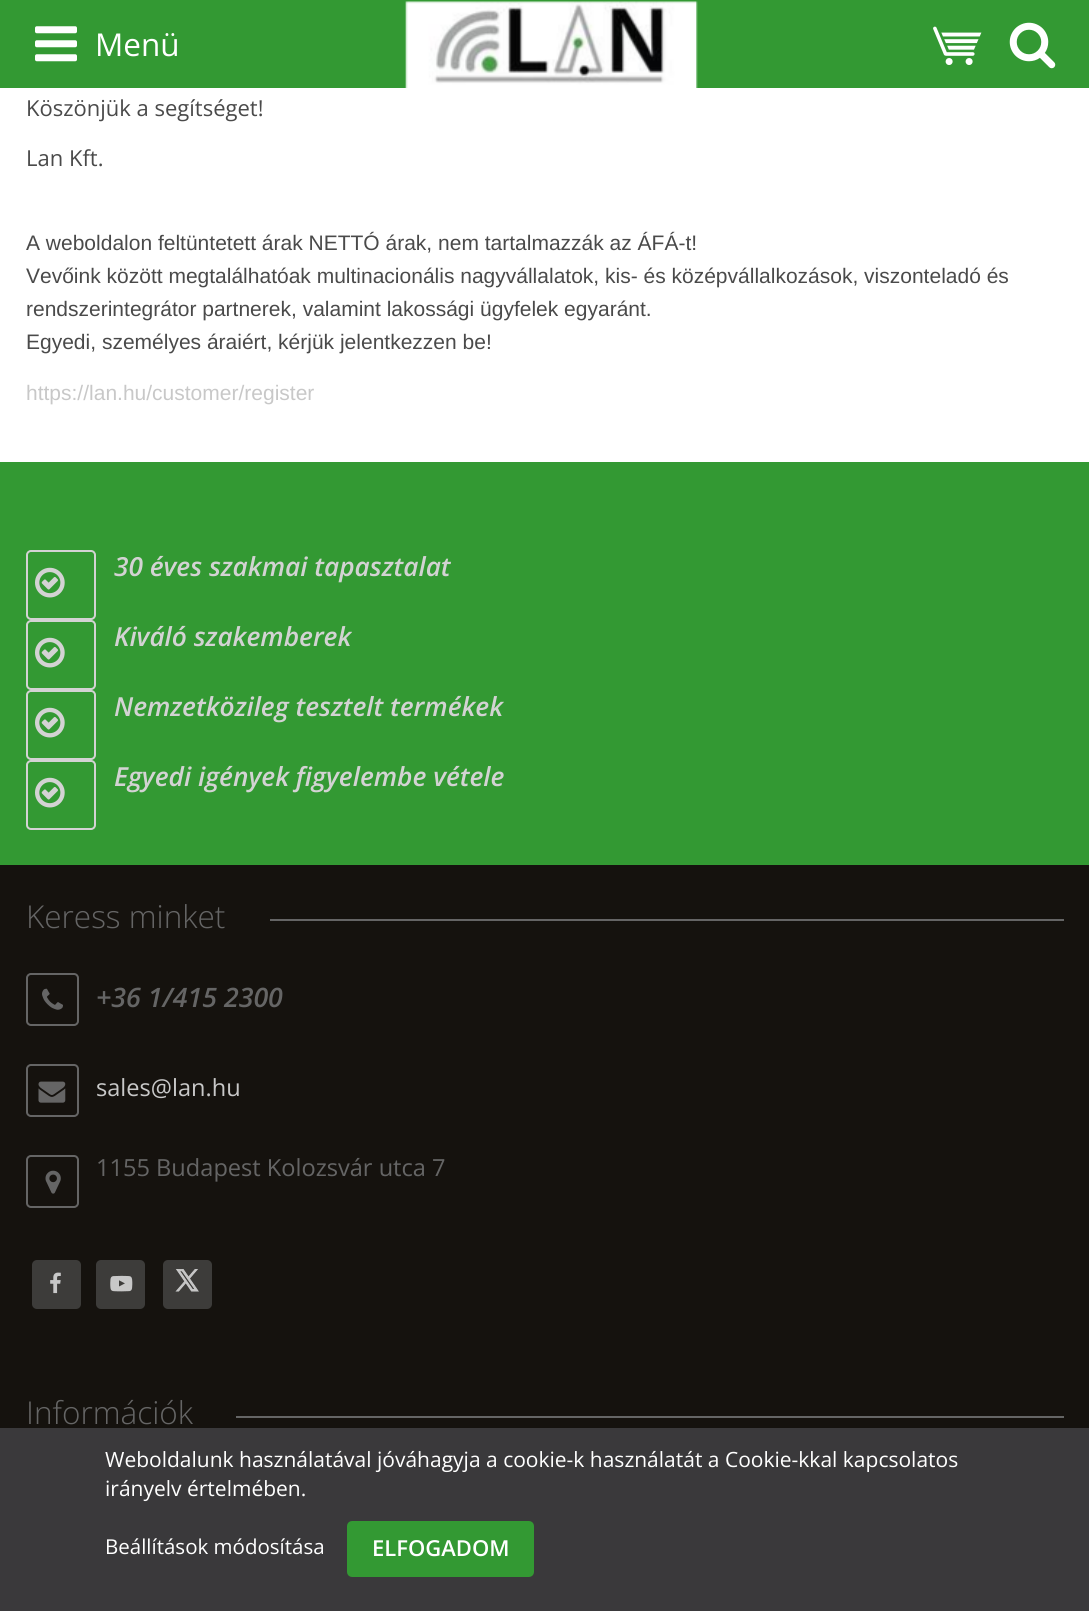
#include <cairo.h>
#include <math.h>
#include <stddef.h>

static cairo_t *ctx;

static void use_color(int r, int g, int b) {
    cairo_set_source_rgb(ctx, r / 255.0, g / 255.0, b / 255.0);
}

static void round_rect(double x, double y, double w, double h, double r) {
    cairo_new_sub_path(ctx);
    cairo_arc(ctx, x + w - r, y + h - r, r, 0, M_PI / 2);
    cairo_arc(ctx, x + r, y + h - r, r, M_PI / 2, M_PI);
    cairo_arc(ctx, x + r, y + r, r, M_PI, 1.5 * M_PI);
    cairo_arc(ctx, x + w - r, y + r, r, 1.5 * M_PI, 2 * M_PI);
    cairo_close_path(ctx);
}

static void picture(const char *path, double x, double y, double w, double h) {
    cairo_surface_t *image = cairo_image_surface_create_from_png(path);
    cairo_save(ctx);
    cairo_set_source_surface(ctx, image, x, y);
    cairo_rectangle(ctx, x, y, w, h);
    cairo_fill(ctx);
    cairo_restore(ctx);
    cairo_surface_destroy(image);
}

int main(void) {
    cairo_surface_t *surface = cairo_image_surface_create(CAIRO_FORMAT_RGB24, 1089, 1611);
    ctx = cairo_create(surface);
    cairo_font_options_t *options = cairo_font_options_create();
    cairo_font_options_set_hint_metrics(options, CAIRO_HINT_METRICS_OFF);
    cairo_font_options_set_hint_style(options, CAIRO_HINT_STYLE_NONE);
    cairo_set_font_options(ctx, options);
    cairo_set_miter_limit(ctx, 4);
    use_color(255, 255, 255);
    cairo_paint(ctx);
    use_color(51, 153, 51);
    cairo_rectangle(ctx, 0, 0, 1089, 88);
    cairo_fill(ctx);
    picture("img1.png", 35, 26, 42, 36);
    cairo_select_font_face(ctx, "Open Sans", CAIRO_FONT_SLANT_NORMAL, CAIRO_FONT_WEIGHT_NORMAL);
    cairo_set_font_size(ctx, 31.5);
    use_color(255, 255, 255);
    cairo_move_to(ctx, 95, 56);
    cairo_show_text(ctx, "Menü");
    picture("img2.png", 405, 1, 293, 87);
    picture("img3.png", 933, 26, 49, 39);
    picture("img4.png", 1009, 22, 47, 47);
    cairo_set_font_size(ctx, 22);
    use_color(74, 74, 74);
    cairo_move_to(ctx, 26, 116);
    cairo_show_text(ctx, "Köszönjük a segítséget!");
    cairo_move_to(ctx, 26, 166);
    cairo_show_text(ctx, "Lan Kft.");
    cairo_select_font_face(ctx, "Liberation Sans", CAIRO_FONT_SLANT_NORMAL, CAIRO_FONT_WEIGHT_NORMAL);
    cairo_set_font_size(ctx, 21);
    cairo_move_to(ctx, 26, 250);
    cairo_show_text(ctx, "A weboldalon feltüntetett árak NETTÓ árak, nem tartalmazzák az ÁFÁ-t!");
    cairo_move_to(ctx, 26, 283);
    cairo_show_text(ctx, "Vevőink között megtalálhatóak multinacionális nagyvállalatok, kis- és középvállalkozások, viszonteladó és");
    cairo_move_to(ctx, 26, 316);
    cairo_show_text(ctx, "rendszerintegrátor partnerek, valamint lakossági ügyfelek egyaránt.");
    cairo_move_to(ctx, 26, 349);
    cairo_show_text(ctx, "Egyedi, személyes áraiért, kérjük jelentkezzen be!");
    use_color(200, 200, 200);
    cairo_move_to(ctx, 26, 400);
    cairo_show_text(ctx, "https://lan.hu/customer/register");
    use_color(51, 153, 51);
    cairo_rectangle(ctx, 0, 462, 1089, 403);
    cairo_fill(ctx);
    round_rect(27, 551, 68, 68, 4);
    use_color(211, 211, 211);
    cairo_stroke(ctx);
    picture("img5.png", 35, 567, 30, 31);
    cairo_select_font_face(ctx, "Open Sans SemiBold", CAIRO_FONT_SLANT_ITALIC, CAIRO_FONT_WEIGHT_NORMAL);
    cairo_set_font_size(ctx, 26.25);
    cairo_move_to(ctx, 114, 576);
    cairo_show_text(ctx, "30 éves szakmai tapasztalat");
    round_rect(27, 621, 68, 68, 4);
    cairo_stroke(ctx);
    picture("img5.png", 35, 637, 30, 31);
    cairo_move_to(ctx, 114, 646);
    cairo_show_text(ctx, "Kiváló szakemberek");
    round_rect(27, 691, 68, 68, 4);
    cairo_stroke(ctx);
    picture("img5.png", 35, 707, 30, 31);
    cairo_move_to(ctx, 114, 716);
    cairo_show_text(ctx, "Nemzetközileg tesztelt termékek");
    round_rect(27, 761, 68, 68, 4);
    cairo_stroke(ctx);
    picture("img5.png", 35, 777, 30, 31);
    cairo_move_to(ctx, 114, 786);
    cairo_show_text(ctx, "Egyedi igények figyelembe vétele");
    use_color(21, 18, 14);
    cairo_rectangle(ctx, 0, 865, 1089, 563);
    cairo_fill(ctx);
    cairo_select_font_face(ctx, "Open Sans Light", CAIRO_FONT_SLANT_NORMAL, CAIRO_FONT_WEIGHT_NORMAL);
    cairo_set_font_size(ctx, 31.5);
    use_color(101, 101, 101);
    cairo_move_to(ctx, 26, 928);
    cairo_show_text(ctx, "Keress minket");
    cairo_rectangle(ctx, 270, 919, 794, 2);
    cairo_fill(ctx);
    round_rect(27, 974, 51, 51, 4);
    cairo_stroke(ctx);
    picture("img6.png", 42, 988, 21, 22);
    cairo_select_font_face(ctx, "Open Sans SemiBold", CAIRO_FONT_SLANT_ITALIC, CAIRO_FONT_WEIGHT_NORMAL);
    cairo_set_font_size(ctx, 26.75);
    cairo_move_to(ctx, 96, 1007);
    cairo_show_text(ctx, "+36 1/415 2300");
    round_rect(27, 1065, 51, 51, 4);
    cairo_stroke(ctx);
    picture("img7.png", 38, 1081, 28, 22);
    cairo_select_font_face(ctx, "Open Sans", CAIRO_FONT_SLANT_NORMAL, CAIRO_FONT_WEIGHT_NORMAL);
    cairo_set_font_size(ctx, 23.6);
    use_color(200, 200, 200);
    cairo_move_to(ctx, 96, 1096);
    cairo_show_text(ctx, "sales@lan.hu");
    round_rect(27, 1156, 51, 51, 4);
    use_color(101, 101, 101);
    cairo_stroke(ctx);
    picture("img8.png", 45, 1170, 16, 24);
    cairo_move_to(ctx, 96, 1176);
    cairo_show_text(ctx, "1155 Budapest Kolozsvár utca 7");
    use_color(61, 60, 58);
    round_rect(32, 1260, 49, 49, 5);
    cairo_fill(ctx);
    picture("img9.png", 50, 1272, 11, 22);
    round_rect(96, 1260, 49, 49, 5);
    cairo_fill(ctx);
    picture("img10.png", 110, 1275, 23, 17);
    round_rect(163, 1260, 49, 49, 5);
    cairo_fill(ctx);
    picture("img11.png", 175, 1269, 24, 23);
    cairo_select_font_face(ctx, "Open Sans Light", CAIRO_FONT_SLANT_NORMAL, CAIRO_FONT_WEIGHT_NORMAL);
    cairo_set_font_size(ctx, 31.5);
    use_color(101, 101, 101);
    cairo_move_to(ctx, 26, 1424);
    cairo_show_text(ctx, "Információk");
    cairo_rectangle(ctx, 236, 1416, 828, 2);
    cairo_fill(ctx);
    use_color(58, 57, 59);
    cairo_rectangle(ctx, 0, 1428, 1089, 183);
    cairo_fill(ctx);
    cairo_select_font_face(ctx, "Open Sans", CAIRO_FONT_SLANT_NORMAL, CAIRO_FONT_WEIGHT_NORMAL);
    cairo_set_font_size(ctx, 21);
    use_color(255, 255, 255);
    cairo_move_to(ctx, 105, 1467);
    cairo_show_text(ctx, "Weboldalunk használatával jóváhagyja a cookie-k használatát a Cookie-kkal kapcsolatos");
    cairo_move_to(ctx, 105, 1496);
    cairo_show_text(ctx, "irányelv értelmében.");
    cairo_set_font_size(ctx, 20.5);
    cairo_move_to(ctx, 105, 1554);
    cairo_show_text(ctx, "Beállítások módosítása");
    use_color(51, 153, 51);
    round_rect(349, 1523, 183, 52, 3);
    cairo_fill_preserve(ctx);
    cairo_set_line_width(ctx, 4);
    cairo_stroke(ctx);
    cairo_select_font_face(ctx, "Open Sans SemiBold", CAIRO_FONT_SLANT_NORMAL, CAIRO_FONT_WEIGHT_NORMAL);
    cairo_set_font_size(ctx, 22);
    use_color(255, 255, 255);
    cairo_move_to(ctx, 372, 1556);
    cairo_show_text(ctx, "ELFOGADOM");
    cairo_surface_write_to_png(surface, "result.png");
    cairo_font_options_destroy(options);
    cairo_destroy(ctx);
    cairo_surface_destroy(surface);
    return 0;
}
